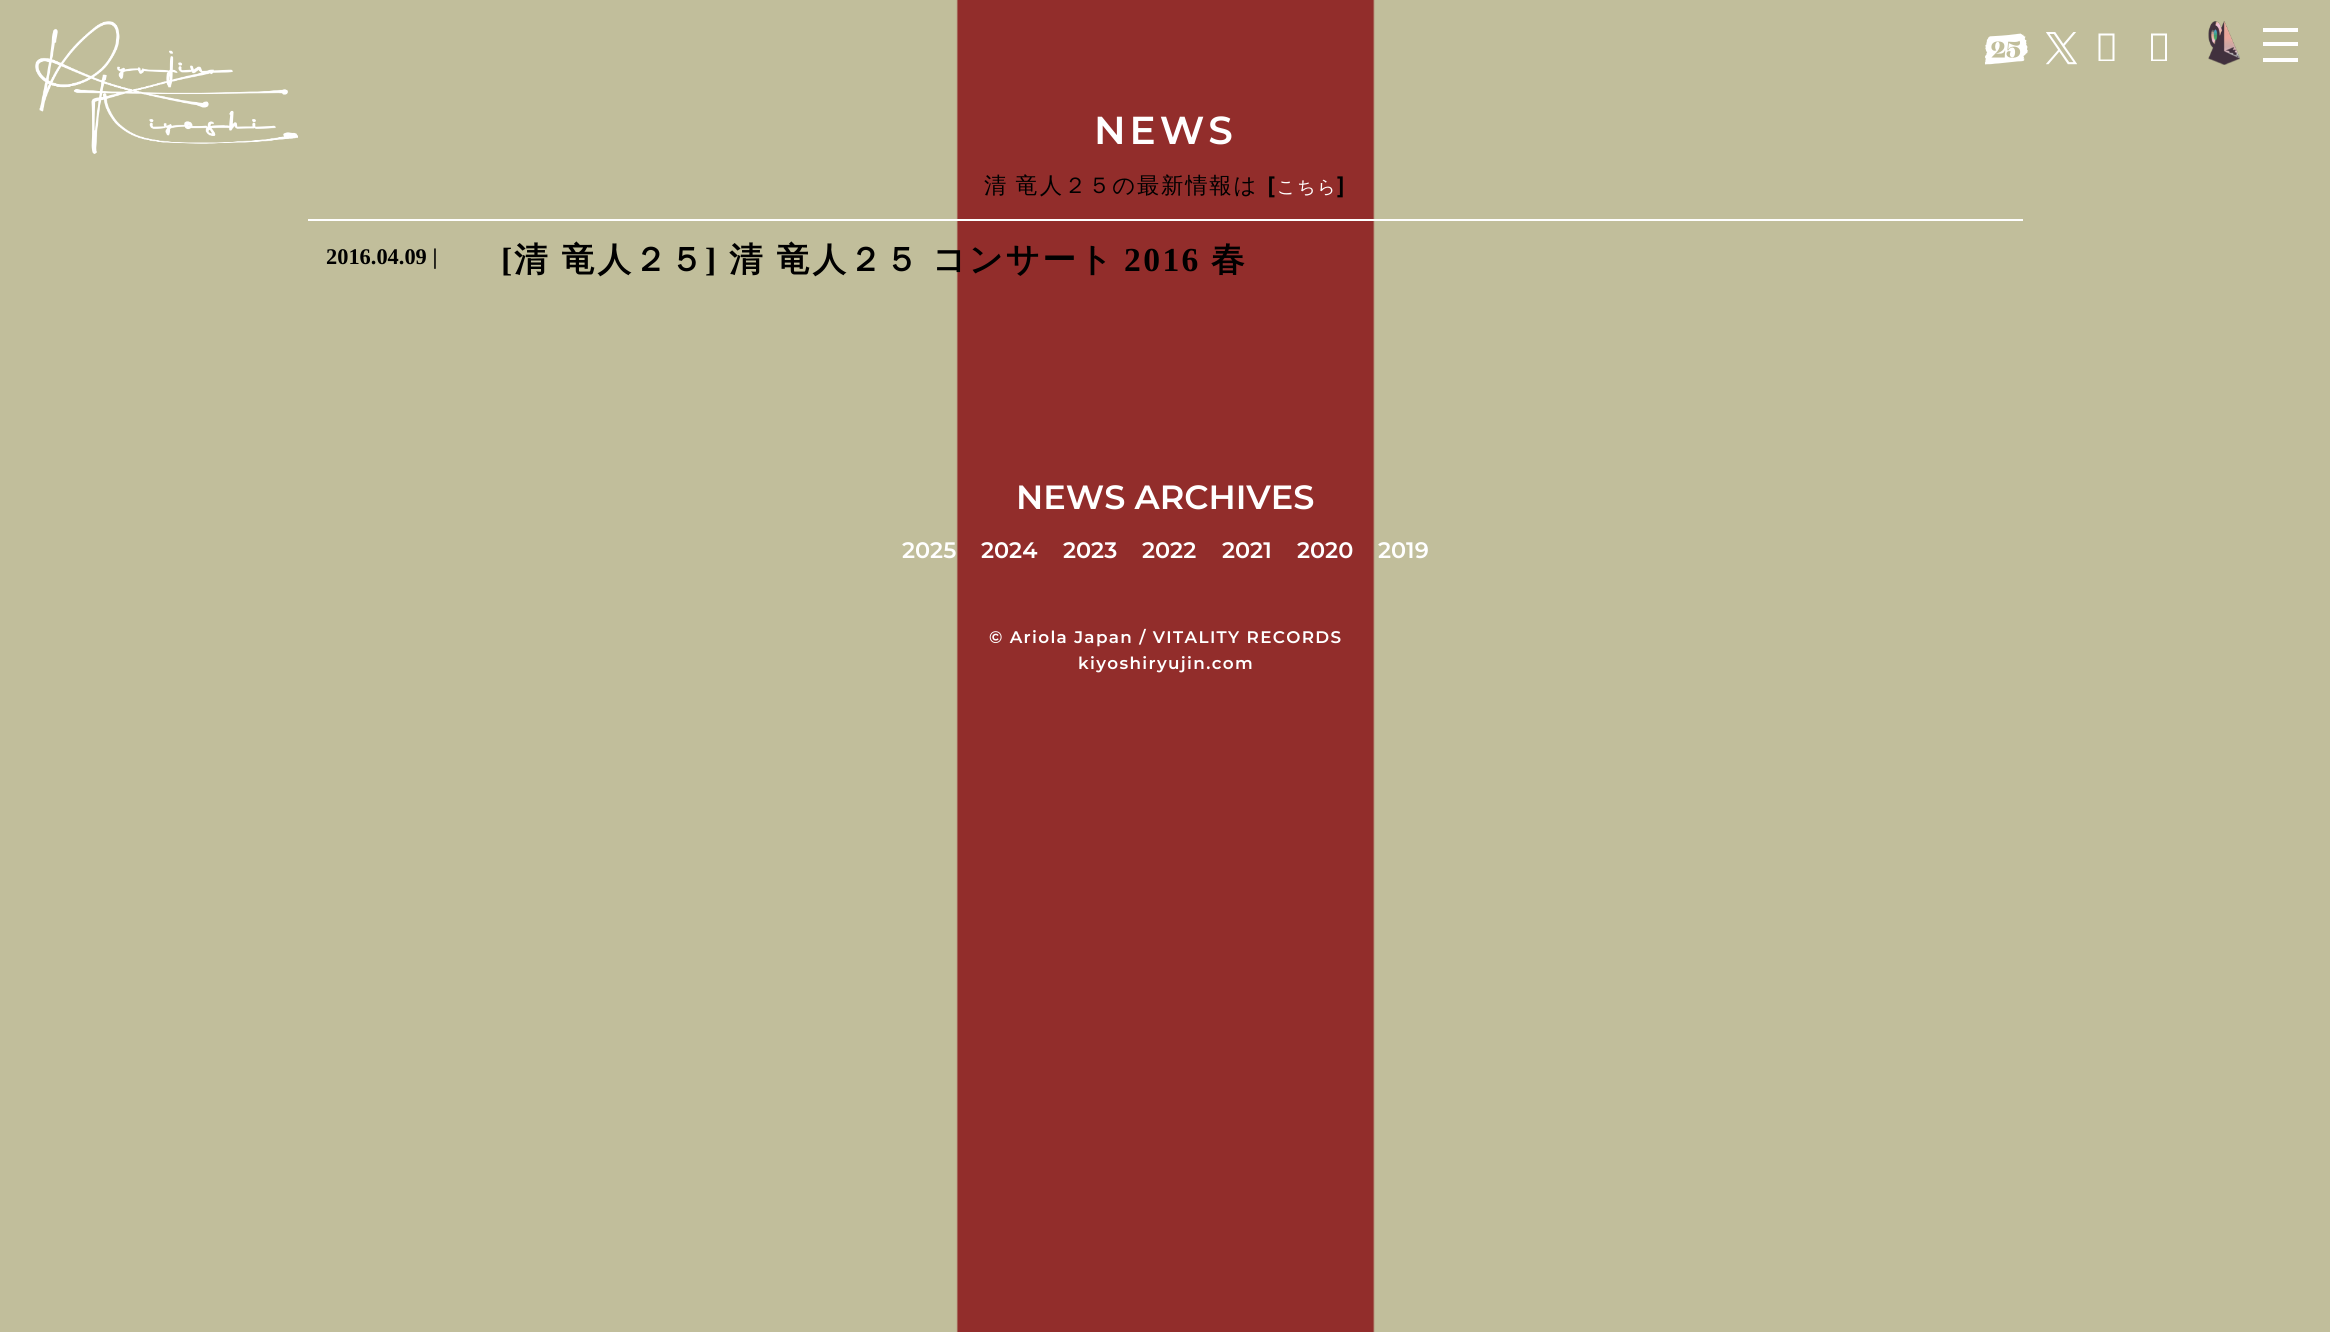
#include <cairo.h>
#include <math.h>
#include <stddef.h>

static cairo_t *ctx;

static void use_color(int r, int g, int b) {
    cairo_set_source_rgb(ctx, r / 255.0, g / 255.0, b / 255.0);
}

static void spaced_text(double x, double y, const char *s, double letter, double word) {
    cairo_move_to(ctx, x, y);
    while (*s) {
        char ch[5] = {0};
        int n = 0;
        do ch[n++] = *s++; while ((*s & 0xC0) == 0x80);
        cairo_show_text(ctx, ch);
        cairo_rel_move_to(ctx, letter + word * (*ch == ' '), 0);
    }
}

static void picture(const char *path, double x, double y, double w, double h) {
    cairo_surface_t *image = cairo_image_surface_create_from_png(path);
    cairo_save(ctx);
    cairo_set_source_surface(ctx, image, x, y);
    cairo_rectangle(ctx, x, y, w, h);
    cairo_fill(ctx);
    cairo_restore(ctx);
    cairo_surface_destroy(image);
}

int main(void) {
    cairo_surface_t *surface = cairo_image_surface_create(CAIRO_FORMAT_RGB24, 2330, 1332);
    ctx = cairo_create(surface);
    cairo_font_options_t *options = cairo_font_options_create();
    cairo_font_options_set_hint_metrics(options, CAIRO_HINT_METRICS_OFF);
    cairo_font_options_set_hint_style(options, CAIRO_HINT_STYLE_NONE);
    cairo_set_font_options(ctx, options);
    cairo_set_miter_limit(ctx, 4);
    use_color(255, 255, 255);
    cairo_paint(ctx);
    picture("img1.png", 0, 0, 2330, 1332);
    picture("img2.png", 35, 21, 263, 133);
    picture("img3.png", 1985, 33, 43, 32);
    picture("img4.png", 2046, 32, 31, 33);
    use_color(255, 255, 255);
    cairo_new_path(ctx);
    cairo_move_to(ctx, 2098.5, 61);
    cairo_line_to(ctx, 2098.5, 33.5);
    cairo_line_to(ctx, 2114.5, 33.5);
    cairo_line_to(ctx, 2114.5, 61);
    cairo_close_path(ctx);
    cairo_move_to(ctx, 2100.5, 59.5);
    cairo_line_to(ctx, 2112.5, 59.5);
    cairo_line_to(ctx, 2112.5, 35.5);
    cairo_line_to(ctx, 2100.5, 35.5);
    cairo_close_path(ctx);
    cairo_fill(ctx);
    cairo_new_path(ctx);
    cairo_move_to(ctx, 2151, 61);
    cairo_line_to(ctx, 2151, 33.5);
    cairo_line_to(ctx, 2167, 33.5);
    cairo_line_to(ctx, 2167, 61);
    cairo_close_path(ctx);
    cairo_move_to(ctx, 2153, 59.5);
    cairo_line_to(ctx, 2165, 59.5);
    cairo_line_to(ctx, 2165, 35.5);
    cairo_line_to(ctx, 2153, 35.5);
    cairo_close_path(ctx);
    cairo_fill(ctx);
    picture("img5.png", 2208, 21, 32, 44);
    cairo_rectangle(ctx, 2263, 28, 35, 4);
    cairo_fill(ctx);
    cairo_rectangle(ctx, 2263, 42, 35, 4);
    cairo_fill(ctx);
    cairo_rectangle(ctx, 2263, 58, 35, 4);
    cairo_fill(ctx);
    cairo_select_font_face(ctx, "Montserrat SemiBold", CAIRO_FONT_SLANT_NORMAL, CAIRO_FONT_WEIGHT_NORMAL);
    cairo_set_font_size(ctx, 39);
    spaced_text(1094, 144, "NEWS", 4, 0);
    cairo_select_font_face(ctx, "WenQuanYi Zen Hei Medium", CAIRO_FONT_SLANT_NORMAL, CAIRO_FONT_WEIGHT_NORMAL);
    cairo_set_font_size(ctx, 22.4);
    use_color(0, 0, 0);
    spaced_text(984, 193, "清 竜人２５の最新情報は", 1.75, -1);
    cairo_select_font_face(ctx, "Montserrat SemiBold", CAIRO_FONT_SLANT_NORMAL, CAIRO_FONT_WEIGHT_NORMAL);
    spaced_text(1267, 193, "[", 1.75, 0);
    cairo_select_font_face(ctx, "WenQuanYi Zen Hei Medium", CAIRO_FONT_SLANT_NORMAL, CAIRO_FONT_WEIGHT_NORMAL);
    cairo_set_font_size(ctx, 18);
    use_color(255, 255, 255);
    spaced_text(1277, 193, "こちら", 1.75, 0);
    cairo_select_font_face(ctx, "Montserrat SemiBold", CAIRO_FONT_SLANT_NORMAL, CAIRO_FONT_WEIGHT_NORMAL);
    cairo_set_font_size(ctx, 22.4);
    use_color(0, 0, 0);
    spaced_text(1337, 193, "]", 1.75, 0);
    use_color(255, 255, 255);
    cairo_rectangle(ctx, 308, 219, 1715, 2);
    cairo_fill(ctx);
    cairo_select_font_face(ctx, "Liberation Serif", CAIRO_FONT_SLANT_NORMAL, CAIRO_FONT_WEIGHT_BOLD);
    use_color(0, 0, 0);
    cairo_move_to(ctx, 326, 264);
    cairo_show_text(ctx, "2016.04.09 |");
    cairo_set_font_size(ctx, 33.6);
    spaced_text(501, 271, "[", 2.4, 0);
    cairo_select_font_face(ctx, "WenQuanYi Zen Hei", CAIRO_FONT_SLANT_NORMAL, CAIRO_FONT_WEIGHT_BOLD);
    spaced_text(514, 271, "清 竜人２５", 2.4, -1);
    cairo_select_font_face(ctx, "Liberation Serif", CAIRO_FONT_SLANT_NORMAL, CAIRO_FONT_WEIGHT_BOLD);
    spaced_text(705, 271, "]", 2.4, 0);
    cairo_select_font_face(ctx, "WenQuanYi Zen Hei", CAIRO_FONT_SLANT_NORMAL, CAIRO_FONT_WEIGHT_BOLD);
    spaced_text(729, 271, "清 竜人２５ コンサート", 2.4, -1);
    cairo_select_font_face(ctx, "Liberation Serif", CAIRO_FONT_SLANT_NORMAL, CAIRO_FONT_WEIGHT_BOLD);
    spaced_text(1124, 271, "2016", 2.4, 0);
    cairo_select_font_face(ctx, "WenQuanYi Zen Hei", CAIRO_FONT_SLANT_NORMAL, CAIRO_FONT_WEIGHT_BOLD);
    spaced_text(1211, 271, "春", 2.4, 0);
    cairo_select_font_face(ctx, "Montserrat SemiBold", CAIRO_FONT_SLANT_NORMAL, CAIRO_FONT_WEIGHT_NORMAL);
    use_color(255, 255, 255);
    cairo_move_to(ctx, 1016, 509);
    cairo_show_text(ctx, "NEWS ARCHIVES");
    cairo_set_font_size(ctx, 22.4);
    cairo_move_to(ctx, 902, 558);
    cairo_show_text(ctx, "2025");
    cairo_move_to(ctx, 981, 558);
    cairo_show_text(ctx, "2024");
    cairo_move_to(ctx, 1063, 558);
    cairo_show_text(ctx, "2023");
    cairo_move_to(ctx, 1142, 558);
    cairo_show_text(ctx, "2022");
    cairo_move_to(ctx, 1222, 558);
    cairo_show_text(ctx, "2021");
    cairo_move_to(ctx, 1297, 558);
    cairo_show_text(ctx, "2020");
    cairo_move_to(ctx, 1378, 558);
    cairo_show_text(ctx, "2019");
    cairo_set_font_size(ctx, 16.8);
    spaced_text(989, 643, "© Ariola Japan / VITALITY RECORDS", 1.35, 0);
    spaced_text(1078, 669, "kiyoshiryujin.com", 1.35, 0);
    cairo_surface_write_to_png(surface, "result.png");
    cairo_font_options_destroy(options);
    cairo_destroy(ctx);
    cairo_surface_destroy(surface);
    return 0;
}
